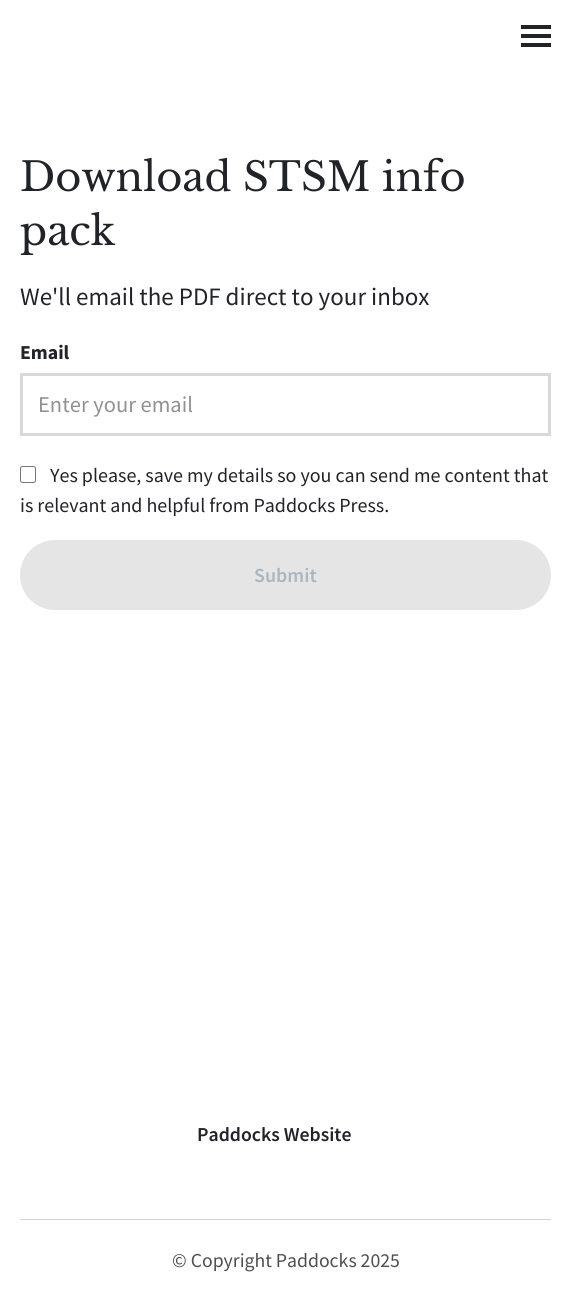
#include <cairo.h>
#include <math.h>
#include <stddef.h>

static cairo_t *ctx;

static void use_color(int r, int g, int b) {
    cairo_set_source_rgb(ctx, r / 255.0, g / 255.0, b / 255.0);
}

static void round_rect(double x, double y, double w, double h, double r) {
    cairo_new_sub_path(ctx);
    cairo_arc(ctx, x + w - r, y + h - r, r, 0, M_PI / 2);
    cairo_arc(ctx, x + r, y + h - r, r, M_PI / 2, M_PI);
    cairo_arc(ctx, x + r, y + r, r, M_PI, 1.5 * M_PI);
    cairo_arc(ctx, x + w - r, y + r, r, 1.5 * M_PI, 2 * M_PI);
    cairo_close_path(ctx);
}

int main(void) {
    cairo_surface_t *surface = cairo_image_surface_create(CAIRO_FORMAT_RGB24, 571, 1305);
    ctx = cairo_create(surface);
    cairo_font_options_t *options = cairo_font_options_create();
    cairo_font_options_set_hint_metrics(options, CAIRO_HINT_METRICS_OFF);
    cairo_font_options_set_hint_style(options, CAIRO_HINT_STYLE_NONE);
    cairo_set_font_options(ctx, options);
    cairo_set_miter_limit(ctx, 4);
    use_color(255, 255, 255);
    cairo_paint(ctx);
    use_color(33, 35, 38);
    cairo_rectangle(ctx, 521, 34, 30, 4);
    cairo_fill(ctx);
    cairo_rectangle(ctx, 521, 25, 30, 4);
    cairo_fill(ctx);
    cairo_rectangle(ctx, 521, 43, 30, 4);
    cairo_fill(ctx);
    cairo_select_font_face(ctx, "Libre Baskerville", CAIRO_FONT_SLANT_NORMAL, CAIRO_FONT_WEIGHT_NORMAL);
    cairo_set_font_size(ctx, 40);
    cairo_move_to(ctx, 20, 191);
    cairo_show_text(ctx, "Download STSM info");
    cairo_move_to(ctx, 20, 245);
    cairo_show_text(ctx, "pack");
    cairo_select_font_face(ctx, "Source Sans Pro", CAIRO_FONT_SLANT_NORMAL, CAIRO_FONT_WEIGHT_NORMAL);
    cairo_set_font_size(ctx, 25);
    cairo_move_to(ctx, 20, 305);
    cairo_show_text(ctx, "We'll email the PDF direct to your inbox");
    cairo_select_font_face(ctx, "Source Sans Pro", CAIRO_FONT_SLANT_NORMAL, CAIRO_FONT_WEIGHT_BOLD);
    cairo_set_font_size(ctx, 19.75);
    cairo_move_to(ctx, 20, 359);
    cairo_show_text(ctx, "Email");
    cairo_rectangle(ctx, 21.5, 374.5, 528, 60);
    use_color(217, 217, 217);
    cairo_set_line_width(ctx, 3);
    cairo_stroke(ctx);
    cairo_select_font_face(ctx, "Source Sans Pro", CAIRO_FONT_SLANT_NORMAL, CAIRO_FONT_WEIGHT_NORMAL);
    cairo_set_font_size(ctx, 22.5);
    use_color(144, 145, 147);
    cairo_move_to(ctx, 38, 412);
    cairo_show_text(ctx, "Enter your email");
    round_rect(20.5, 466.5, 15, 16, 2);
    use_color(118, 118, 118);
    cairo_set_line_width(ctx, 1);
    cairo_stroke(ctx);
    cairo_set_font_size(ctx, 20);
    use_color(33, 35, 38);
    cairo_move_to(ctx, 50, 482);
    cairo_show_text(ctx, "Yes please, save my details so you can send me content that");
    cairo_move_to(ctx, 20, 512);
    cairo_show_text(ctx, "is relevant and helpful from Paddocks Press.");
    use_color(229, 229, 229);
    round_rect(21.5, 541.5, 528, 67, 33.5);
    cairo_fill_preserve(ctx);
    cairo_set_line_width(ctx, 3);
    cairo_stroke(ctx);
    cairo_select_font_face(ctx, "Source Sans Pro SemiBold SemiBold", CAIRO_FONT_SLANT_NORMAL, CAIRO_FONT_WEIGHT_NORMAL);
    use_color(173, 181, 189);
    cairo_move_to(ctx, 254, 582);
    cairo_show_text(ctx, "Submit");
    cairo_set_font_size(ctx, 19.75);
    use_color(33, 35, 38);
    cairo_move_to(ctx, 197, 1141);
    cairo_show_text(ctx, "Paddocks Website");
    use_color(211, 211, 212);
    cairo_rectangle(ctx, 20, 1219, 531, 1);
    cairo_fill(ctx);
    cairo_select_font_face(ctx, "Source Sans Pro", CAIRO_FONT_SLANT_NORMAL, CAIRO_FONT_WEIGHT_NORMAL);
    use_color(77, 79, 81);
    cairo_move_to(ctx, 172, 1267);
    cairo_show_text(ctx, "© Copyright Paddocks 2025");
    cairo_surface_write_to_png(surface, "result.png");
    cairo_font_options_destroy(options);
    cairo_destroy(ctx);
    cairo_surface_destroy(surface);
    return 0;
}
